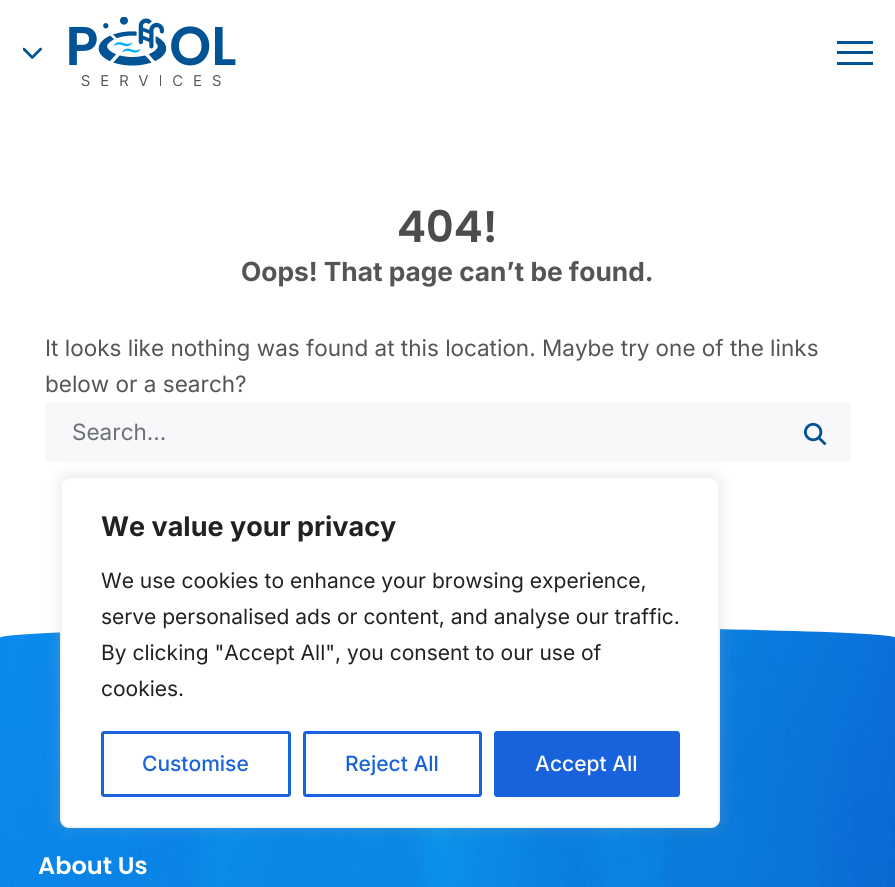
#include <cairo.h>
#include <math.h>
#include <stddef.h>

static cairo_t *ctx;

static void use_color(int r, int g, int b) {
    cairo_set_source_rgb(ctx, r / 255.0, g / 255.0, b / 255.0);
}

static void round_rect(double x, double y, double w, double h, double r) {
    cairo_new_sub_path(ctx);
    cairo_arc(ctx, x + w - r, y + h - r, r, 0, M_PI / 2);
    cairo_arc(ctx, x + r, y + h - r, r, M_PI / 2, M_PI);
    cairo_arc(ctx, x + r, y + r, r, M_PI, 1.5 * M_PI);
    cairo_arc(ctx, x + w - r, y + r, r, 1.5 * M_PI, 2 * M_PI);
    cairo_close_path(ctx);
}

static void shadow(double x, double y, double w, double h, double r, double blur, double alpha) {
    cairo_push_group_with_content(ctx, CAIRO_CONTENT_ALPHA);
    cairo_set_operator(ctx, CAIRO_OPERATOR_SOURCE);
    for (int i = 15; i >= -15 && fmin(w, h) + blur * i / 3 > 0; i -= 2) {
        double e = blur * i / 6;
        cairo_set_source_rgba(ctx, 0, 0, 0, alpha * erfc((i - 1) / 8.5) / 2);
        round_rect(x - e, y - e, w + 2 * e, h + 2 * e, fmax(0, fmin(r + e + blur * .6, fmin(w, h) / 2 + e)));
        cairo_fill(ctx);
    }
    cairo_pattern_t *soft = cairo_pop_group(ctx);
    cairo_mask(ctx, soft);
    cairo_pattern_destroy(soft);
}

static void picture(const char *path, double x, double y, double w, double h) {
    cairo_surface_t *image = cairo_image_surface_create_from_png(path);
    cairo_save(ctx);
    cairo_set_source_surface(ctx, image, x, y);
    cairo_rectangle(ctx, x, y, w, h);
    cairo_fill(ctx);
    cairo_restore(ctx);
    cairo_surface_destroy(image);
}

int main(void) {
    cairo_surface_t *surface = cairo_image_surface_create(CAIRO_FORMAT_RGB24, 895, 887);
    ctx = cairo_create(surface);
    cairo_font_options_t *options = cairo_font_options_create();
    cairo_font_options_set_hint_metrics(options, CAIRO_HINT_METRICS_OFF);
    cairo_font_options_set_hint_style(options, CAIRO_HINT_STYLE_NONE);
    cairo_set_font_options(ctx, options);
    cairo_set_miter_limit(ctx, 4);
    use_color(255, 255, 255);
    cairo_paint(ctx);
    picture("img1.png", 23, 47, 19, 12);
    picture("img2.png", 69, 17, 167, 69);
    use_color(0, 83, 149);
    cairo_rectangle(ctx, 837, 51, 36, 3);
    cairo_fill(ctx);
    cairo_rectangle(ctx, 837, 41, 36, 3);
    cairo_fill(ctx);
    cairo_rectangle(ctx, 837, 62, 36, 3);
    cairo_fill(ctx);
    cairo_select_font_face(ctx, "Poppins SemiBold", CAIRO_FONT_SLANT_NORMAL, CAIRO_FONT_WEIGHT_NORMAL);
    cairo_set_font_size(ctx, 43.5);
    use_color(76, 76, 76);
    cairo_move_to(ctx, 397, 242);
    cairo_show_text(ctx, "404!");
    cairo_select_font_face(ctx, "Inter", CAIRO_FONT_SLANT_NORMAL, CAIRO_FONT_WEIGHT_BOLD);
    cairo_set_font_size(ctx, 26.3);
    use_color(85, 85, 85);
    cairo_move_to(ctx, 241, 281);
    cairo_show_text(ctx, "Oops! That page can’t be found.");
    cairo_select_font_face(ctx, "Inter", CAIRO_FONT_SLANT_NORMAL, CAIRO_FONT_WEIGHT_NORMAL);
    cairo_set_font_size(ctx, 22.5);
    cairo_move_to(ctx, 45, 356);
    cairo_show_text(ctx, "It looks like nothing was found at this location. Maybe try one of the links");
    cairo_move_to(ctx, 45, 392);
    cairo_show_text(ctx, "below or a search?");
    use_color(248, 248, 250);
    cairo_rectangle(ctx, 45, 402, 806, 60);
    cairo_fill(ctx);
    use_color(108, 113, 118);
    cairo_move_to(ctx, 72, 440);
    cairo_show_text(ctx, "Search...");
    picture("img3.png", 804, 422, 23, 24);
    picture("img4.png", 0, 629, 895, 258);
    use_color(172, 171, 171);
    shadow(60, 476, 660, 351, 9, 7.5, 0.3);
    use_color(255, 255, 255);
    round_rect(61, 478, 658, 349, 8);
    cairo_fill_preserve(ctx);
    use_color(244, 244, 244);
    cairo_stroke(ctx);
    cairo_select_font_face(ctx, "Inter", CAIRO_FONT_SLANT_NORMAL, CAIRO_FONT_WEIGHT_BOLD);
    cairo_set_font_size(ctx, 27);
    use_color(33, 33, 33);
    cairo_move_to(ctx, 101, 536);
    cairo_show_text(ctx, "We value your privacy");
    cairo_select_font_face(ctx, "Inter", CAIRO_FONT_SLANT_NORMAL, CAIRO_FONT_WEIGHT_NORMAL);
    cairo_set_font_size(ctx, 21);
    cairo_move_to(ctx, 101, 588);
    cairo_show_text(ctx, "We use cookies to enhance your browsing experience,");
    cairo_move_to(ctx, 101, 624);
    cairo_show_text(ctx, "serve personalised ads or content, and analyse our traffic.");
    cairo_move_to(ctx, 101, 660);
    cairo_show_text(ctx, "By clicking \"Accept All\", you consent to our use of");
    cairo_move_to(ctx, 101, 696);
    cairo_show_text(ctx, "cookies.");
    round_rect(102.5, 732.5, 187, 63, 1.5);
    use_color(24, 99, 220);
    cairo_set_line_width(ctx, 3);
    cairo_stroke(ctx);
    cairo_select_font_face(ctx, "Inter Medium", CAIRO_FONT_SLANT_NORMAL, CAIRO_FONT_WEIGHT_NORMAL);
    cairo_move_to(ctx, 142, 771);
    cairo_show_text(ctx, "Customise");
    round_rect(304.5, 732.5, 176, 63, 1.5);
    cairo_stroke(ctx);
    cairo_move_to(ctx, 345, 771);
    cairo_show_text(ctx, "Reject All");
    round_rect(495.5, 732.5, 183, 63, 1.5);
    cairo_fill_preserve(ctx);
    cairo_stroke(ctx);
    use_color(255, 255, 255);
    cairo_move_to(ctx, 535, 771);
    cairo_show_text(ctx, "Accept All");
    cairo_select_font_face(ctx, "Poppins SemiBold", CAIRO_FONT_SLANT_NORMAL, CAIRO_FONT_WEIGHT_NORMAL);
    cairo_set_font_size(ctx, 24);
    cairo_move_to(ctx, 38, 874);
    cairo_show_text(ctx, "About Us");
    cairo_surface_write_to_png(surface, "result.png");
    cairo_font_options_destroy(options);
    cairo_destroy(ctx);
    cairo_surface_destroy(surface);
    return 0;
}
